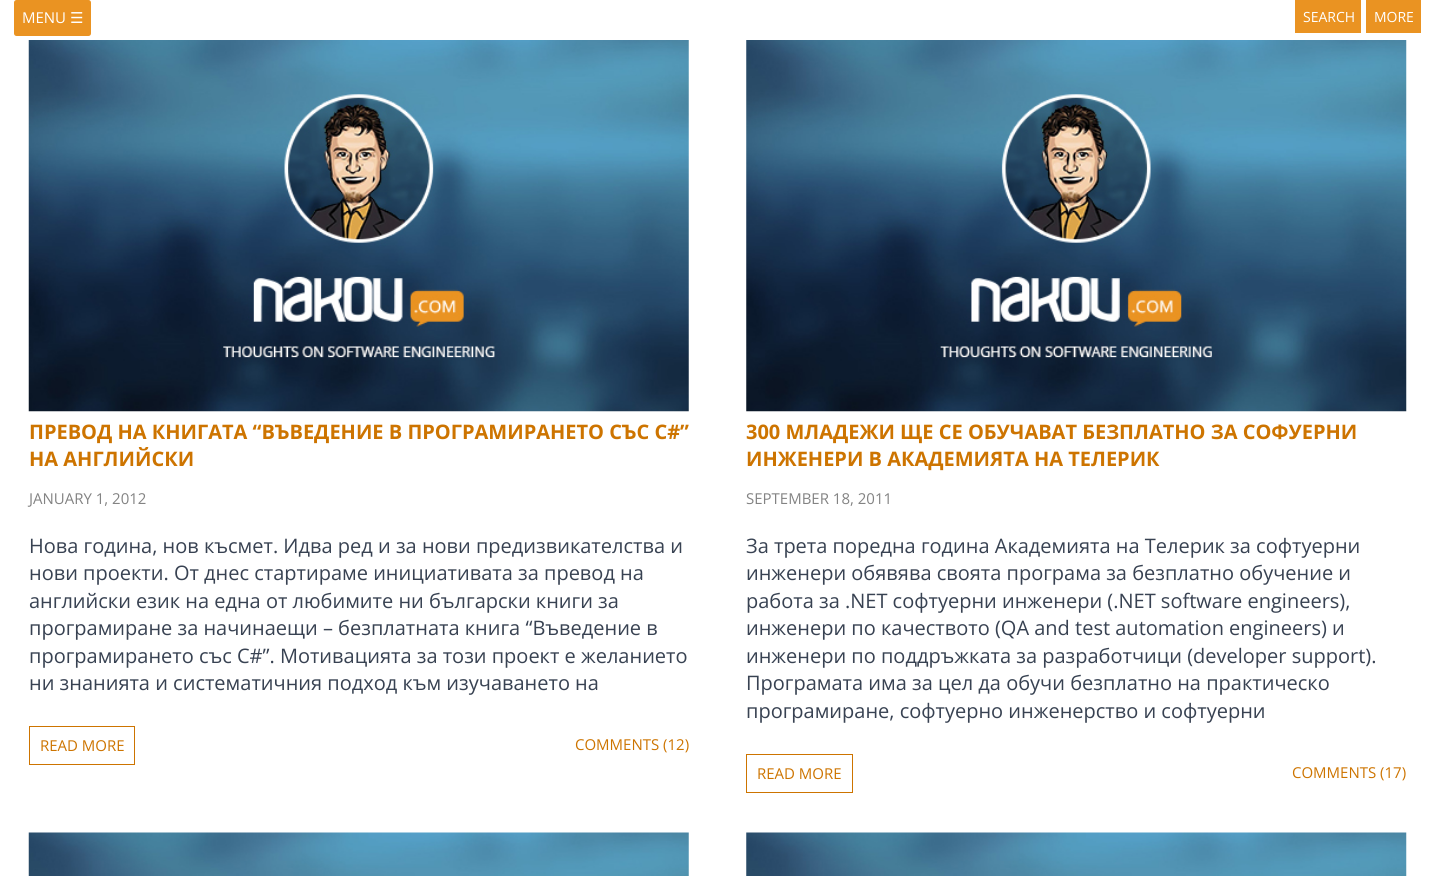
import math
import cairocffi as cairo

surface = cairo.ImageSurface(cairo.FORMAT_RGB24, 1434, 876)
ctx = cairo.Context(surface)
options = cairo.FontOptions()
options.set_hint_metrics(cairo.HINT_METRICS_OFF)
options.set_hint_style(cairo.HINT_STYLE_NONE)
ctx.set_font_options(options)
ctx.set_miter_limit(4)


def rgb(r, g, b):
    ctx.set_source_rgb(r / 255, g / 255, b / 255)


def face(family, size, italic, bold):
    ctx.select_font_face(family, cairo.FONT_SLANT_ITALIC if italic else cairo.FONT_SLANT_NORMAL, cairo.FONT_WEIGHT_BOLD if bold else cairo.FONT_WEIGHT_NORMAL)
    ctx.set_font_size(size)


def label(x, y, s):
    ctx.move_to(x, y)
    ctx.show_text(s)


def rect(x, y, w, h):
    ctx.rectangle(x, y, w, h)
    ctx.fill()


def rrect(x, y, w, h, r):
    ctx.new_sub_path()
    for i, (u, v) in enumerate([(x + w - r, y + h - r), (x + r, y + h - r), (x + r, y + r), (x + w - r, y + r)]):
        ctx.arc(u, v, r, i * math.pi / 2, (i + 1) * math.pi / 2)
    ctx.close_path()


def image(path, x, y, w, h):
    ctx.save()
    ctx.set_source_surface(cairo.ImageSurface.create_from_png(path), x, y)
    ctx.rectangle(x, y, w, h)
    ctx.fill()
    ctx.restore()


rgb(255, 255, 255)
ctx.paint()
rgb(234, 147, 34)
rrect(14, 0, 77, 36, 2.5)
ctx.fill()
face('Open Sans', 15, 0, 0)
rgb(255, 255, 255)
label(22, 23, 'MENU')
face('DejaVu Sans', 15, 0, 0)
label(70, 23, '☰')
rgb(234, 147, 34)
rect(1295, 0, 66, 33)
face('Open Sans', 14, 0, 0)
rgb(255, 255, 255)
label(1303, 22, 'SEARCH')
rgb(234, 147, 34)
rect(1366, 0, 55, 33)
rgb(255, 255, 255)
label(1374, 22, 'MORE')
image('image0.png', 28, 40, 661, 372)
face('Open Sans', 20, 0, 1)
rgb(205, 116, 0)
label(29, 439, 'ПРЕВОД НА КНИГАТА “ВЪВЕДЕНИЕ В ПРОГРАМИРАНЕТО СЪС C#”')
label(29, 466, 'НА АНГЛИЙСКИ')
face('Open Sans', 15, 0, 0)
rgb(131, 131, 131)
label(29, 504, 'JANUARY 1, 2012')
face('Open Sans', 20, 0, 0)
rgb(56, 66, 82)
label(29, 553, 'Нова година, нов късмет. Идва ред и за нови предизвикателства и')
label(29, 580, 'нови проекти. От днес стартираме инициативата за превод на')
label(29, 608, 'английски език на една от любимите ни български книги за')
label(29, 635, 'програмиране за начинаещи – безплатната книга “Въведение в')
label(29, 663, 'програмирането със C#”. Мотивацията за този проект е желанието')
label(29, 690, 'ни знанията и систематичния подход към изучаването на')
ctx.rectangle(29.5, 726.5, 105, 38)
rgb(205, 116, 0)
ctx.set_line_width(1)
ctx.stroke()
face('Open Sans', 15, 0, 0)
label(40, 751, 'READ MORE')
label(575, 750, 'COMMENTS (12)')
image('image1.png', 746, 40, 661, 372)
face('Open Sans', 20, 0, 1)
label(746, 439, '300 МЛАДЕЖИ ЩЕ СЕ ОБУЧАВАТ БЕЗПЛАТНО ЗА СОФУЕРНИ')
label(746, 466, 'ИНЖЕНЕРИ В АКАДЕМИЯТА НА ТЕЛЕРИК')
face('Open Sans', 15, 0, 0)
rgb(131, 131, 131)
label(746, 504, 'SEPTEMBER 18, 2011')
face('Open Sans', 20, 0, 0)
rgb(56, 66, 82)
label(746, 553, 'За трета поредна година Академията на Телерик за софтуерни')
label(746, 580, 'инженери обявява своята програма за безплатно обучение и')
label(746, 608, 'работа за .NET софтуерни инженери (.NET software engineers),')
label(746, 635, 'инженери по качеството (QA and test automation engineers) и')
label(746, 663, 'инженери по поддръжката за разработчици (developer support).')
label(746, 690, 'Програмата има за цел да обучи безплатно на практическо')
label(746, 718, 'програмиране, софтуерно инженерство и софтуерни')
ctx.rectangle(746.5, 754.5, 106, 38)
rgb(205, 116, 0)
ctx.stroke()
face('Open Sans', 15, 0, 0)
label(757, 779, 'READ MORE')
label(1292, 778, 'COMMENTS (17)')
image('image2.png', 28, 832, 661, 44)
image('image3.png', 746, 832, 661, 44)
surface.write_to_png('render.png')
